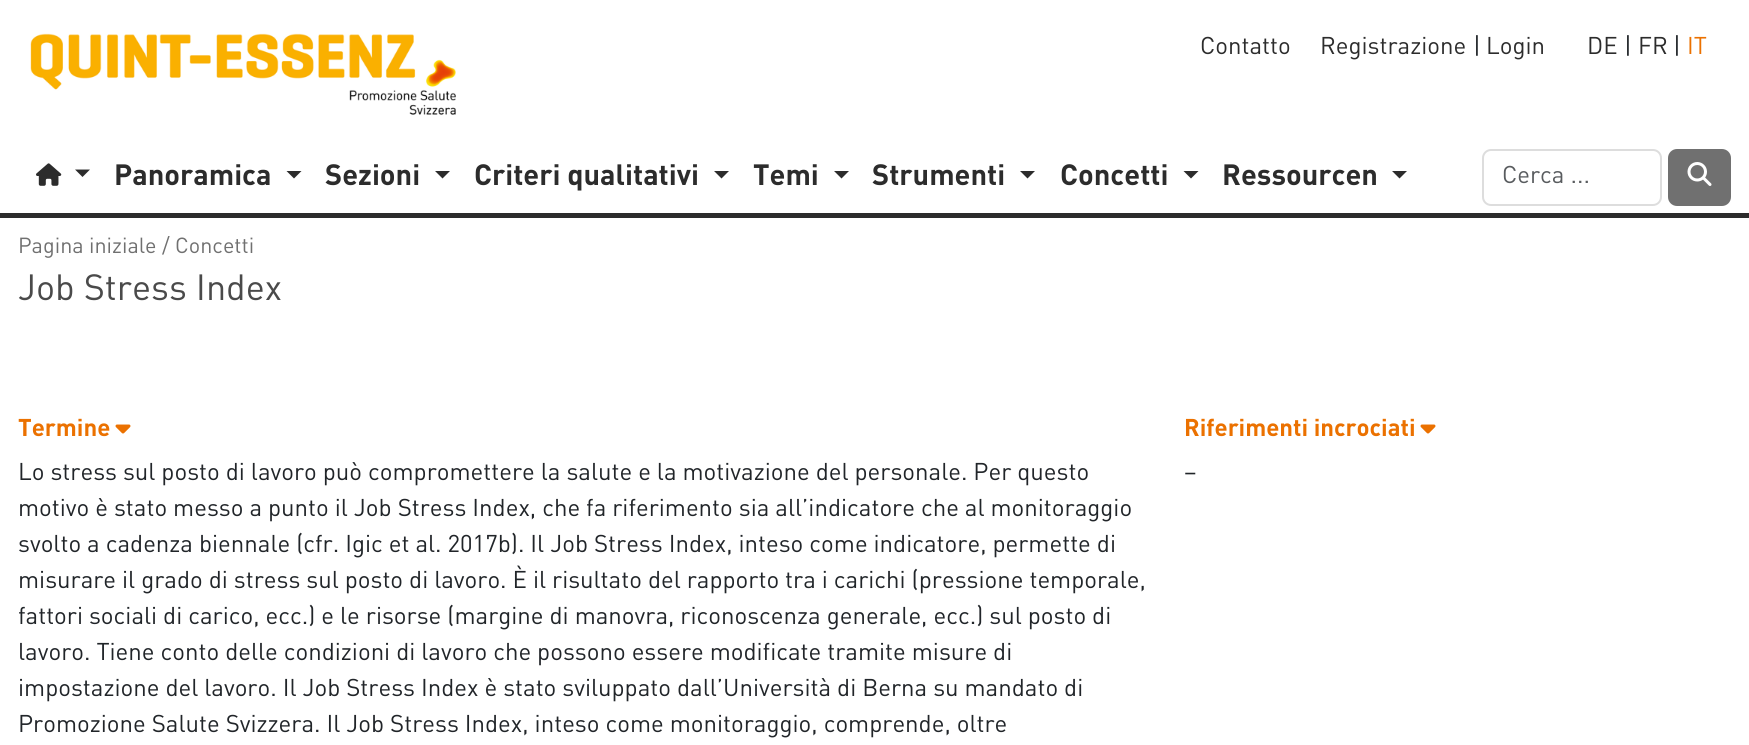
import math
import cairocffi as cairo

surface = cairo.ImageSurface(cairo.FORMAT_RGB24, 1749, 745)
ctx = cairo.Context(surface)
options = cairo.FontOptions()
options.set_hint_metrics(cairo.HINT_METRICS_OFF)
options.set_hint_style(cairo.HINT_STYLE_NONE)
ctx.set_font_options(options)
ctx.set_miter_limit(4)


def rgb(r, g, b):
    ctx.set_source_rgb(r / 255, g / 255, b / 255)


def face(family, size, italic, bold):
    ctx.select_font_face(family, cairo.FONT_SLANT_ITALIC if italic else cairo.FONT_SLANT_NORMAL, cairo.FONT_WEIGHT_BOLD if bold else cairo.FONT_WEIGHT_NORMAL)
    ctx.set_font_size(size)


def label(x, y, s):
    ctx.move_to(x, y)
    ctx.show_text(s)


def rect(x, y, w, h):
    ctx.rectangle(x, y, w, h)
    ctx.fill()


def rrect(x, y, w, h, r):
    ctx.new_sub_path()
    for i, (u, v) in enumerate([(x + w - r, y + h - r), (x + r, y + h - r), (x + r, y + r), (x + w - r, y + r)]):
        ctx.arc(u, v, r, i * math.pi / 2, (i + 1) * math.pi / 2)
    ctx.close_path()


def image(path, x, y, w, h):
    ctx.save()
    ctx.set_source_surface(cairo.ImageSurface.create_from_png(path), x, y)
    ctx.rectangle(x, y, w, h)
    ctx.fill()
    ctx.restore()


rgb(255, 255, 255)
ctx.paint()
image('image0.png', 30, 33, 426, 82)
face('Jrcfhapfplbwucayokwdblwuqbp', 24, 0, 0)
rgb(44, 44, 44)
label(1200, 54, 'Contatto')
label(1320, 54, 'Registrazione')
rgb(33, 37, 41)
label(1473, 54, '|')
rgb(44, 44, 44)
label(1486, 54, 'Login')
label(1587, 54, 'DE')
rgb(33, 37, 41)
label(1624, 54, '|')
rgb(44, 44, 44)
label(1638, 54, 'FR')
rgb(33, 37, 41)
label(1673, 54, '|')
rgb(235, 113, 0)
label(1687, 54, 'IT')
image('image1.png', 36, 163, 26, 23)
rgb(44, 44, 44)
ctx.new_path()
ctx.move_to(75, 169.5)
ctx.line_to(90, 169.5)
ctx.line_to(82.5, 177)
ctx.close_path()
ctx.fill()
face('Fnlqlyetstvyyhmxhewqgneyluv', 29, 0, 1)
label(114, 185, 'Panoramica')
ctx.new_path()
ctx.move_to(286.5, 171)
ctx.line_to(301.5, 171)
ctx.line_to(294, 178.5)
ctx.close_path()
ctx.fill()
label(325, 185, 'Sezioni')
ctx.new_path()
ctx.move_to(435, 171)
ctx.line_to(450, 171)
ctx.line_to(442.5, 178.5)
ctx.close_path()
ctx.fill()
label(474, 185, 'Criteri qualitativi')
ctx.new_path()
ctx.move_to(714, 171)
ctx.line_to(729, 171)
ctx.line_to(721.5, 178.5)
ctx.close_path()
ctx.fill()
label(753, 185, 'Temi')
ctx.new_path()
ctx.move_to(834, 171)
ctx.line_to(849, 171)
ctx.line_to(841.5, 178.5)
ctx.close_path()
ctx.fill()
label(872, 185, 'Strumenti')
ctx.new_path()
ctx.move_to(1020, 171)
ctx.line_to(1035, 171)
ctx.line_to(1027.5, 178.5)
ctx.close_path()
ctx.fill()
label(1060, 185, 'Concetti')
ctx.new_path()
ctx.move_to(1183.5, 171)
ctx.line_to(1198.5, 171)
ctx.line_to(1191, 178.5)
ctx.close_path()
ctx.fill()
label(1222, 185, 'Ressourcen')
ctx.new_path()
ctx.move_to(1392, 171)
ctx.line_to(1407, 171)
ctx.line_to(1399.5, 178.5)
ctx.close_path()
ctx.fill()
rrect(1483, 150, 178, 55, 8)
rgb(221, 221, 221)
ctx.stroke()
face('Jrcfhapfplbwucayokwdblwuqbp', 24, 0, 0)
rgb(89, 92, 95)
label(1502, 183, 'Cerca ...')
rgb(112, 112, 112)
rrect(1668, 149, 63, 57, 9)
ctx.fill()
image('image2.png', 1687, 162, 25, 24)
rgb(44, 44, 44)
rect(0, 213, 1749, 5)
face('Jrcfhapfplbwucayokwdblwuqbp', 21.6, 0, 0)
rgb(112, 112, 112)
label(18, 253, 'Pagina iniziale / Concetti')
face('Jrcfhapfplbwucayokwdblwuqbp', 36, 0, 0)
rgb(74, 74, 74)
label(18, 300, 'Job Stress Index')
face('Fnlqlyetstvyyhmxhewqgneyluv', 24, 0, 1)
rgb(235, 113, 0)
label(18, 436, 'Termine')
image('image3.png', 115, 424, 16, 10)
face('Jrcfhapfplbwucayokwdblwuqbp', 24, 0, 0)
rgb(33, 37, 41)
label(18, 480, 'Lo stress sul posto di lavoro può compromettere la salute e la motivazione del personale. Per questo')
label(18, 516, 'motivo è stato messo a punto il Job Stress Index, che fa riferimento sia all’indicatore che al monitoraggio')
label(18, 552, 'svolto a cadenza biennale (cfr. Igic et al. 2017b). Il Job Stress Index, inteso come indicatore, permette di')
label(18, 588, 'misurare il grado di stress sul posto di lavoro. È il risultato del rapporto tra i carichi (pressione temporale,')
label(18, 624, 'fattori sociali di carico, ecc.) e le risorse (margine di manovra, riconoscenza generale, ecc.) sul posto di')
label(18, 660, 'lavoro. Tiene conto delle condizioni di lavoro che possono essere modificate tramite misure di')
label(18, 696, 'impostazione del lavoro. Il Job Stress Index è stato sviluppato dall’Università di Berna su mandato di')
label(18, 732, 'Promozione Salute Svizzera. Il Job Stress Index, inteso come monitoraggio, comprende, oltre')
face('Fnlqlyetstvyyhmxhewqgneyluv', 24, 0, 1)
rgb(235, 113, 0)
label(1184, 436, 'Riferimenti incrociati')
image('image3.png', 1420, 424, 16, 10)
face('Jrcfhapfplbwucayokwdblwuqbp', 24, 0, 0)
rgb(33, 37, 41)
label(1184, 480, '–')
surface.write_to_png('render.png')
